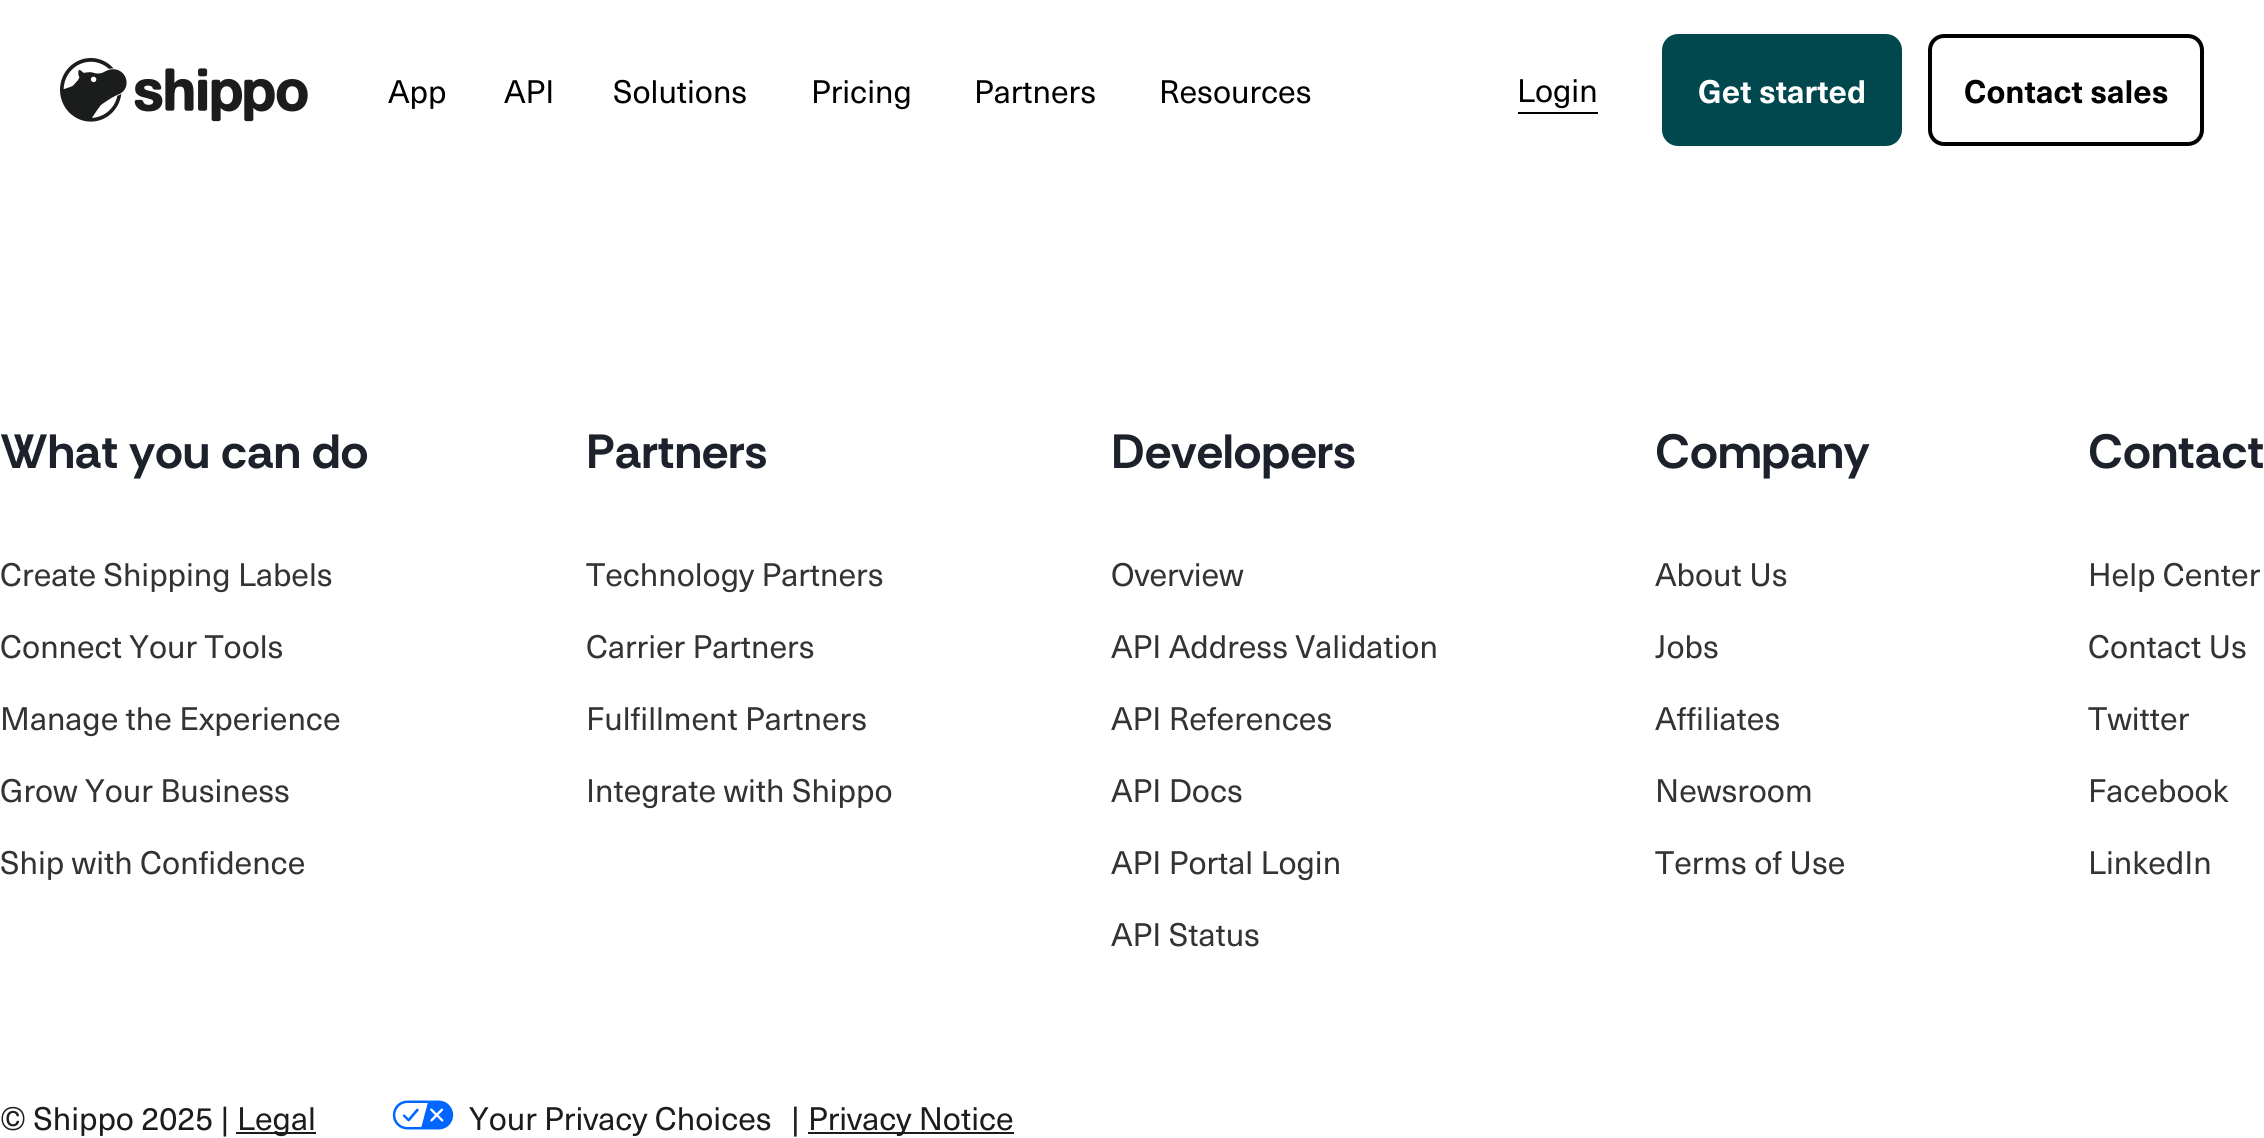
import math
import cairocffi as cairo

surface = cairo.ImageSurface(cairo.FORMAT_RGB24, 2264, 1138)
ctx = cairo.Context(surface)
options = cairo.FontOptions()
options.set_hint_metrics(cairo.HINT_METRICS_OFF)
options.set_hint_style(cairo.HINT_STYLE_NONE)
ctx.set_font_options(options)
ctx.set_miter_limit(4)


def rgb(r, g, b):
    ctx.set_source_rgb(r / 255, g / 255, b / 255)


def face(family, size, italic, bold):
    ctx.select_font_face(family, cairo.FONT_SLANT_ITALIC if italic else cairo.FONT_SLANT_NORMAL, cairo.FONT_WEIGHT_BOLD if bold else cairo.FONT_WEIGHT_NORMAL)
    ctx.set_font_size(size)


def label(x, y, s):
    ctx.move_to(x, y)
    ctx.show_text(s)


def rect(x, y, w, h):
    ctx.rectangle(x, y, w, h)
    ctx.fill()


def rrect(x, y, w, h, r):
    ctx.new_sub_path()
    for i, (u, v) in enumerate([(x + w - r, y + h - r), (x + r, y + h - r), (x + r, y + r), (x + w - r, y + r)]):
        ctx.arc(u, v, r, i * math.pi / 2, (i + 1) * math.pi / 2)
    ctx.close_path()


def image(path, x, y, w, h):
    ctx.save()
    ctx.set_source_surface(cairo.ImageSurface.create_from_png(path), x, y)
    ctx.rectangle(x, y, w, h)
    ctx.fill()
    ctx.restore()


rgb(255, 255, 255)
ctx.paint()
image('image0.png', 60, 58, 248, 64)
face('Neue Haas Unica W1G', 32, 0, 0)
rgb(0, 0, 0)
label(388, 103, 'App')
label(504, 103, 'API')
label(613, 103, 'Solutions')
label(811, 103, 'Pricing')
label(974, 103, 'Partners')
label(1159, 103, 'Resources')
rect(1518, 112, 80, 2)
label(1517, 102, 'Login')
rgb(0, 72, 78)
rrect(1664, 36, 236, 108, 14)
ctx.fill_preserve()
ctx.set_line_width(4)
ctx.stroke()
face('Neue Haas Unica W1G', 32, 0, 1)
rgb(255, 255, 255)
label(1698, 103, 'Get started')
rrect(1930, 36, 272, 108, 14)
rgb(0, 0, 0)
ctx.stroke()
label(1964, 103, 'Contact sales')
face('Rethink Sans', 48, 0, 1)
rgb(28, 33, 43)
label(0, 468, 'What you can do')
face('Neue Haas Unica W1G', 32, 0, 0)
rgb(51, 51, 51)
label(0, 586, 'Create Shipping Labels')
label(0, 658, 'Connect Your Tools')
label(0, 730, 'Manage the Experience')
label(0, 802, 'Grow Your Business')
label(0, 874, 'Ship with Confidence')
face('Rethink Sans', 48, 0, 1)
rgb(28, 33, 43)
label(586, 468, 'Partners')
face('Neue Haas Unica W1G', 32, 0, 0)
rgb(51, 51, 51)
label(586, 586, 'Technology Partners')
label(586, 658, 'Carrier Partners')
label(586, 730, 'Fulfillment Partners')
label(586, 802, 'Integrate with Shippo')
face('Rethink Sans', 48, 0, 1)
rgb(28, 33, 43)
label(1111, 468, 'Developers')
face('Neue Haas Unica W1G', 32, 0, 0)
rgb(51, 51, 51)
label(1111, 586, 'Overview')
label(1111, 658, 'API Address Validation')
label(1111, 730, 'API References')
label(1111, 802, 'API Docs')
label(1111, 874, 'API Portal Login')
label(1111, 946, 'API Status')
face('Rethink Sans', 48, 0, 1)
rgb(28, 33, 43)
label(1655, 468, 'Company')
face('Neue Haas Unica W1G', 32, 0, 0)
rgb(51, 51, 51)
label(1655, 586, 'About Us')
label(1655, 658, 'Jobs')
label(1655, 730, 'Affiliates')
label(1655, 802, 'Newsroom')
label(1655, 874, 'Terms of Use')
face('Rethink Sans', 48, 0, 1)
rgb(28, 33, 43)
label(2088, 468, 'Contact')
face('Neue Haas Unica W1G', 32, 0, 0)
rgb(51, 51, 51)
label(2088, 586, 'Help Center')
label(2088, 658, 'Contact Us')
label(2088, 730, 'Twitter')
label(2088, 802, 'Facebook')
label(2088, 874, 'LinkedIn')
rgb(28, 28, 28)
label(0, 1130, '© Shippo 2025 |')
rect(236, 1132, 80, 2)
label(237, 1130, 'Legal')
image('image1.png', 392, 1100, 62, 30)
label(469, 1130, 'Your Privacy Choices')
label(791, 1130, '|')
rect(808, 1132, 206, 2)
label(808, 1130, 'Privacy Notice')
surface.write_to_png('render.png')
